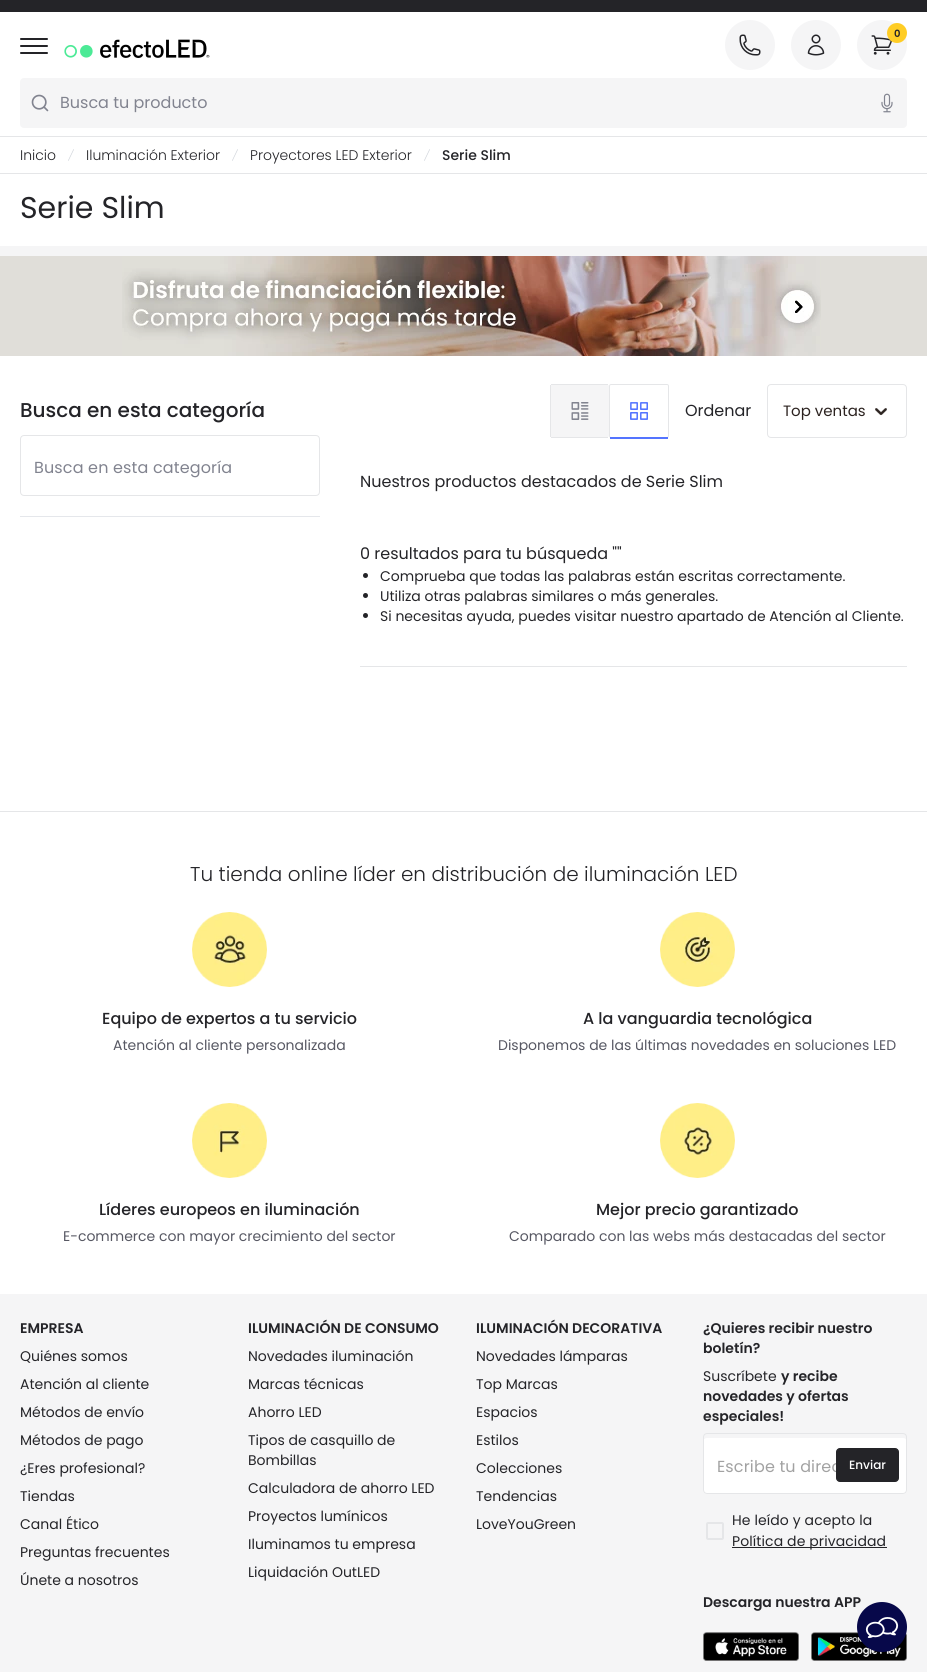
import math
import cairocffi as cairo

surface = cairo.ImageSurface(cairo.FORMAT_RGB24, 927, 1672)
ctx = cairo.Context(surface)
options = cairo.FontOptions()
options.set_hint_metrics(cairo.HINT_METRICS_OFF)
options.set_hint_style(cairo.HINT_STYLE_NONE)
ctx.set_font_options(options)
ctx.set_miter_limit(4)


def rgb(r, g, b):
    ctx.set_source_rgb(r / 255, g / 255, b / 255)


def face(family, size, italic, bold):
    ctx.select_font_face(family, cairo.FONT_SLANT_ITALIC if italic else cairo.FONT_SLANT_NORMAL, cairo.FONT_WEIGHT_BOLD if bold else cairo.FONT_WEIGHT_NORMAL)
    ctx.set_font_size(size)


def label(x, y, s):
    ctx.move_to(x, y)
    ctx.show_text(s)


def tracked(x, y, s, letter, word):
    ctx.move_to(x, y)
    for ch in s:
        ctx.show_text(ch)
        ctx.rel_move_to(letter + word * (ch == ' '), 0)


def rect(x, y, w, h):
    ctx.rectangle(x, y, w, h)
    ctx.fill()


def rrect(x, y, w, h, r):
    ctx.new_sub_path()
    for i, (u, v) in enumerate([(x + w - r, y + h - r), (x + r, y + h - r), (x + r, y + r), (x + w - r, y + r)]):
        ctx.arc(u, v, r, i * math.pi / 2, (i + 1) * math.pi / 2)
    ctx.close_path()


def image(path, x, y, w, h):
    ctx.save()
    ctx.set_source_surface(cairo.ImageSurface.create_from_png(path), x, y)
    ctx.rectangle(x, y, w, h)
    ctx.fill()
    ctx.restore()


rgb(255, 255, 255)
ctx.paint()
rgb(36, 36, 40)
rect(0, 0, 927, 12)
rgb(229, 230, 232)
rect(0, 136, 927, 1)
rgb(245, 245, 246)
ctx.arc(750, 45, 25, 0, 2 * math.pi)
ctx.fill()
image('image0.png', 739, 34, 22, 22)
ctx.arc(816, 45, 25, 0, 2 * math.pi)
ctx.fill()
image('image1.png', 807, 34, 18, 22)
ctx.arc(882, 45, 25, 0, 2 * math.pi)
ctx.fill()
image('image2.png', 871, 35, 21, 20)
rgb(255, 205, 37)
ctx.arc(897, 33, 10, 0, 2 * math.pi)
ctx.fill()
face('Poppins SemiBold', 10, 0, 0)
rgb(36, 36, 40)
label(894, 37, '0')
rrect(20, 38, 28, 2, 1)
ctx.fill()
rrect(20, 45, 28, 2, 1)
ctx.fill()
rrect(20, 52, 28, 2, 1)
ctx.fill()
image('image3.png', 64, 39, 146, 19)
rgb(245, 245, 246)
rrect(20, 78, 887, 50, 4)
ctx.fill()
image('image4.png', 31, 94, 18, 18)
face('Poppins', 16, 0, 0)
rgb(129, 131, 143)
label(60, 108, 'Busca tu producto')
image('image5.png', 881, 93, 12, 20)
rgb(229, 230, 232)
rect(0, 173, 927, 1)
face('Poppins Light', 14, 0, 0)
rgb(36, 36, 40)
label(20, 160, 'Inicio')
rgb(209, 213, 219)
ctx.new_path()
ctx.move_to(68, 160.5)
ctx.line_to(73.5, 149)
ctx.line_to(74, 149.5)
ctx.line_to(68.5, 161)
ctx.close_path()
ctx.fill()
rgb(36, 36, 40)
label(86, 160, 'Iluminación Exterior')
rgb(209, 213, 219)
ctx.new_path()
ctx.move_to(232, 160.5)
ctx.line_to(237.5, 149)
ctx.line_to(238, 149.5)
ctx.line_to(232.5, 161)
ctx.close_path()
ctx.fill()
rgb(36, 36, 40)
label(250, 160, 'Proyectores LED Exterior')
rgb(209, 213, 219)
ctx.new_path()
ctx.move_to(424, 160.5)
ctx.line_to(429.5, 149)
ctx.line_to(430, 149.5)
ctx.line_to(424.5, 161)
ctx.close_path()
ctx.fill()
face('Poppins Medium', 14, 0, 0)
rgb(36, 36, 40)
label(442, 160, 'Serie Slim')
face('Poppins', 30, 0, 0)
label(20, 218, 'Serie Slim')
rgb(245, 245, 246)
rect(0, 246, 927, 10)
rgb(224, 222, 217)
rect(0, 256, 927, 100)
image('image6.png', 122, 256, 699, 100)
rgb(229, 231, 235)
rect(20, 516, 300, 1)
face('Poppins Medium', 20, 0, 0)
rgb(36, 36, 40)
label(20, 417, 'Busca en esta categoría')
rrect(20.5, 435.5, 299, 60, 3.5)
rgb(229, 230, 232)
ctx.set_line_width(1)
ctx.stroke()
face('Poppins', 16, 0, 0)
rgb(129, 131, 143)
tracked(34, 473, 'Busca en esta categoría', 0.15, 0)
rgb(245, 245, 246)
ctx.new_path()
ctx.move_to(552, 385)
ctx.line_to(607, 385)
ctx.curve_to(608, 385, 609, 385, 609, 386)
ctx.line_to(609, 436)
ctx.curve_to(609, 437, 608, 437, 607, 437)
ctx.line_to(552, 437)
ctx.curve_to(551, 437, 551, 437, 551, 436)
ctx.line_to(551, 386)
ctx.curve_to(551, 385, 551, 385, 552, 385)
ctx.close_path()
ctx.fill()
rgb(229, 230, 232)
rect(551, 384, 57, 1)
rect(551, 437, 57, 1)
rect(550, 385, 1, 52)
image('image7.png', 571, 402, 18, 18)
rrect(609.5, 384.5, 59, 53, 1.5)
ctx.stroke()
image('image8.png', 630, 402, 18, 18)
rgb(84, 116, 255)
rect(610, 437, 58, 2)
rgb(36, 36, 40)
label(685, 416, 'Ordenar')
rrect(767.5, 384.5, 139, 53, 3.5)
rgb(229, 230, 232)
ctx.stroke()
face('Poppins', 15, 0, 0)
rgb(43, 34, 31)
label(783, 416, 'Top ventas')
image('image9.png', 875, 408, 12, 8)
face('Poppins', 16, 0, 0)
rgb(36, 36, 40)
label(360, 487, 'Nuestros productos destacados de Serie Slim')
label(360, 559, '0 resultados para tu búsqueda ""')
ctx.new_path()
ctx.arc(365.5, 575.5, 2.5, 0, 2 * math.pi)
ctx.fill()
face('Poppins', 14, 0, 0)
label(380, 581, 'Comprueba que todas las palabras están escritas correctamente.')
ctx.new_path()
ctx.arc(365.5, 595.5, 2.5, 0, 2 * math.pi)
ctx.fill()
label(380, 601, 'Utiliza otras palabras similares o más generales.')
ctx.new_path()
ctx.arc(365.5, 615.5, 2.5, 0, 2 * math.pi)
ctx.fill()
label(380, 621, 'Si necesitas ayuda, puedes visitar nuestro apartado de Atención al Cliente.')
rgb(229, 230, 232)
rect(360, 666, 547, 1)
rect(0, 811, 927, 1)
face('Poppins Light', 20, 0, 0)
rgb(36, 36, 40)
label(190, 881, 'Tu tienda online líder en distribución de iluminación LED')
image('image10.png', 192, 912, 75, 75)
face('Poppins Medium', 16, 0, 0)
label(102, 1024, 'Equipo de expertos a tu servicio')
face('Poppins', 14, 0, 0)
rgb(87, 88, 99)
label(113, 1050, 'Atención al cliente personalizada')
image('image11.png', 660, 912, 75, 75)
face('Poppins Medium', 16, 0, 0)
rgb(36, 36, 40)
label(583, 1024, 'A la vanguardia tecnológica')
face('Poppins', 14, 0, 0)
rgb(87, 88, 99)
label(498, 1050, 'Disponemos de las últimas novedades en soluciones LED')
image('image12.png', 192, 1103, 75, 75)
face('Poppins Medium', 16, 0, 0)
rgb(36, 36, 40)
label(99, 1215, 'Líderes europeos en iluminación')
face('Poppins', 14, 0, 0)
rgb(87, 88, 99)
label(63, 1241, 'E-commerce con mayor crecimiento del sector')
image('image13.png', 660, 1103, 75, 75)
face('Poppins Medium', 16, 0, 0)
rgb(36, 36, 40)
label(596, 1215, 'Mejor precio garantizado')
face('Poppins', 14, 0, 0)
rgb(87, 88, 99)
label(509, 1241, 'Comparado con las webs más destacadas del sector')
rgb(245, 245, 246)
rect(0, 1294, 927, 378)
face('Poppins SemiBold', 14, 0, 0)
rgb(36, 36, 40)
label(20, 1333, 'EMPRESA')
face('Poppins', 14, 0, 0)
label(20, 1361, 'Quiénes somos')
label(20, 1389, 'Atención al cliente')
label(20, 1417, 'Métodos de envío')
label(20, 1445, 'Métodos de pago')
label(20, 1473, '¿Eres profesional?')
label(20, 1501, 'Tiendas')
label(20, 1529, 'Canal Ético')
label(20, 1557, 'Preguntas frecuentes')
label(20, 1585, 'Únete a nosotros')
face('Poppins SemiBold', 14, 0, 0)
label(248, 1333, 'ILUMINACIÓN DE CONSUMO')
face('Poppins', 14, 0, 0)
label(248, 1361, 'Novedades iluminación')
label(248, 1389, 'Marcas técnicas')
label(248, 1417, 'Ahorro LED')
label(248, 1445, 'Tipos de casquillo de')
label(248, 1465, 'Bombillas')
label(248, 1493, 'Calculadora de ahorro LED')
label(248, 1521, 'Proyectos lumínicos')
label(248, 1549, 'Iluminamos tu empresa')
label(248, 1577, 'Liquidación OutLED')
face('Poppins SemiBold', 14, 0, 0)
label(476, 1333, 'ILUMINACIÓN DECORATIVA')
face('Poppins', 14, 0, 0)
label(476, 1361, 'Novedades lámparas')
label(476, 1389, 'Top Marcas')
label(476, 1417, 'Espacios')
label(476, 1445, 'Estilos')
label(476, 1473, 'Colecciones')
label(476, 1501, 'Tendencias')
label(476, 1529, 'LoveYouGreen')
face('Poppins SemiBold', 14, 0, 0)
label(703, 1333, '¿Quieres recibir nuestro')
label(703, 1353, 'boletín?')
face('Poppins', 14, 0, 0)
label(703, 1381, 'Suscríbete')
face('Poppins SemiBold', 14, 0, 0)
label(781, 1381, 'y recibe')
label(703, 1401, 'novedades y ofertas')
label(703, 1421, 'especiales!')
rgb(255, 255, 255)
rrect(703, 1438, 204, 56, 4)
ctx.fill()
rrect(703.5, 1433.5, 203, 60, 3.5)
rgb(229, 230, 232)
ctx.stroke()
face('Poppins', 16, 0, 0)
rgb(162, 162, 162)
tracked(717, 1472, 'Escribe tu direc', 0.15, 0)
rgb(36, 36, 40)
rrect(836.5, 1448.5, 62, 33, 3.5)
ctx.fill_preserve()
ctx.stroke()
face('Poppins Medium', 12, 0, 0)
rgb(255, 255, 255)
label(849, 1469, 'Enviar')
image('image14.png', 706, 1522, 18, 18)
face('Poppins', 14, 0, 0)
rgb(36, 36, 40)
tracked(732, 1525, 'He leído y acepto la', 0.1, 0)
rect(732, 1547, 155, 1)
tracked(732, 1546, 'Política de privacidad', 0.1, 0)
face('Poppins SemiBold', 14, 0, 0)
label(703, 1607, 'Descarga nuestra APP')
image('image15.png', 703, 1632, 96, 29)
image('image16.png', 811, 1632, 96, 29)
rgb(7, 8, 74)
ctx.arc(882, 1627, 25, 0, 2 * math.pi)
ctx.fill()
image('image17.png', 865, 1617, 34, 21)
surface.write_to_png('render.png')
